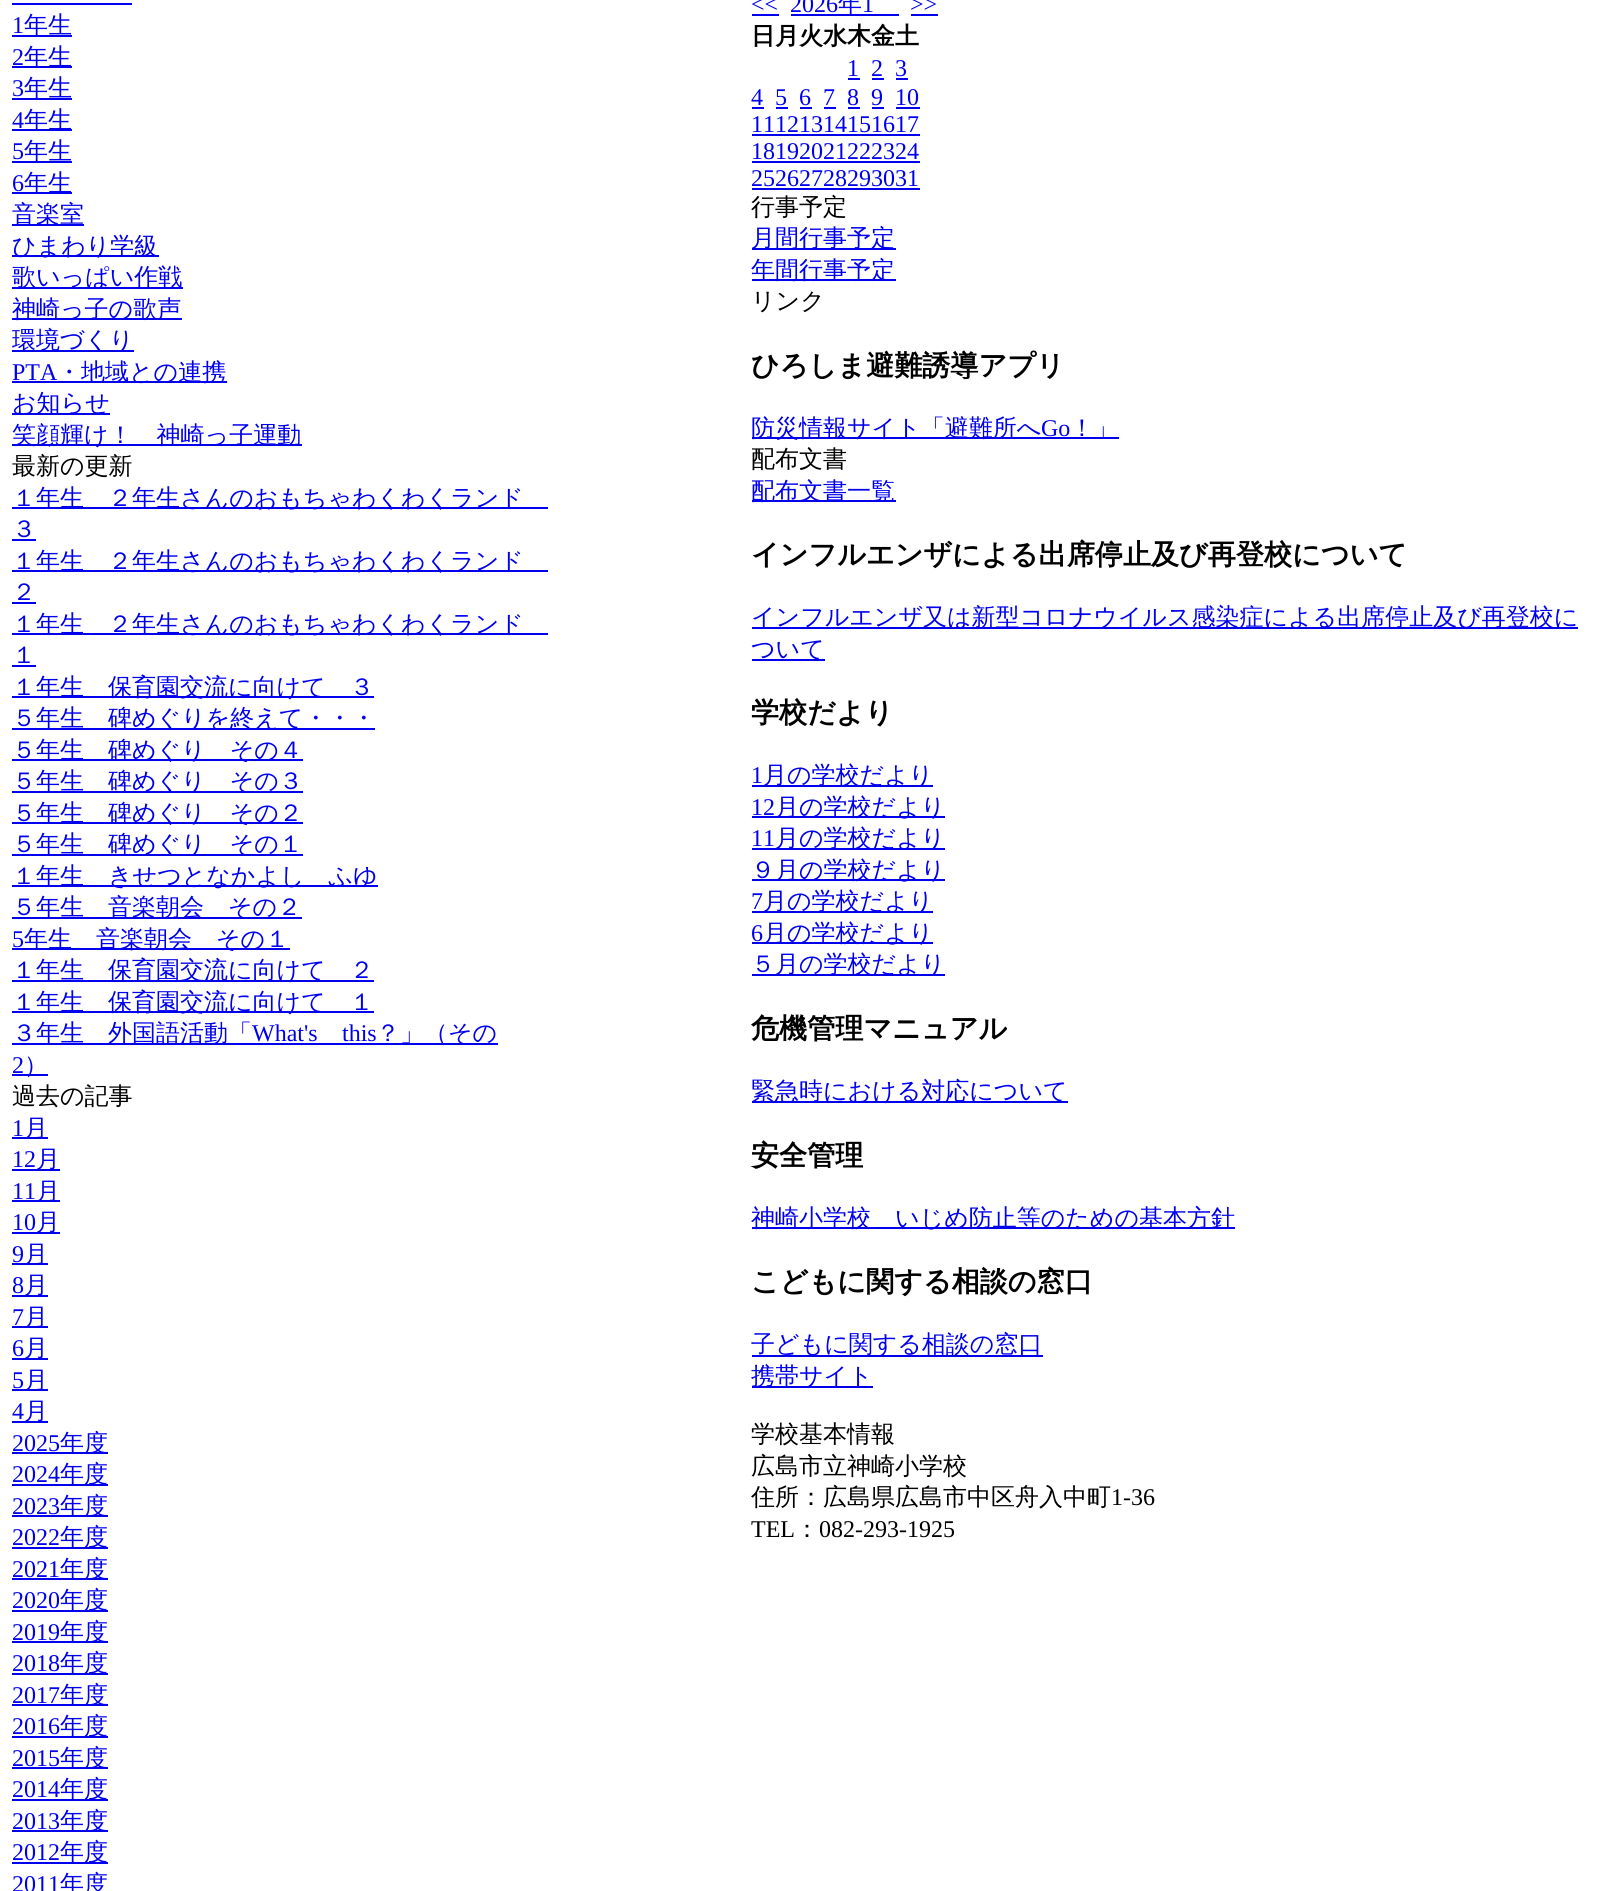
import math
import cairocffi as cairo

surface = cairo.ImageSurface(cairo.FORMAT_RGB24, 1603, 1891)
ctx = cairo.Context(surface)
options = cairo.FontOptions()
options.set_hint_metrics(cairo.HINT_METRICS_OFF)
options.set_hint_style(cairo.HINT_STYLE_NONE)
ctx.set_font_options(options)
ctx.set_miter_limit(4)


def rgb(r, g, b):
    ctx.set_source_rgb(r / 255, g / 255, b / 255)


def face(family, size, italic, bold):
    ctx.select_font_face(family, cairo.FONT_SLANT_ITALIC if italic else cairo.FONT_SLANT_NORMAL, cairo.FONT_WEIGHT_BOLD if bold else cairo.FONT_WEIGHT_NORMAL)
    ctx.set_font_size(size)


def label(x, y, s):
    ctx.move_to(x, y)
    ctx.show_text(s)


def rect(x, y, w, h):
    ctx.rectangle(x, y, w, h)
    ctx.fill()


rgb(255, 255, 255)
ctx.paint()
rgb(0, 0, 238)
rect(12, 3, 120, 2)
face('Liberation Serif', 24, 0, 0)
label(12, 33, '1')
rect(12, 35, 60, 2)
face('WenQuanYi Zen Hei Medium', 24, 0, 0)
label(24, 33, '年生')
face('Liberation Serif', 24, 0, 0)
label(12, 65, '2')
rect(12, 66, 60, 2)
face('WenQuanYi Zen Hei Medium', 24, 0, 0)
label(24, 65, '年生')
face('Liberation Serif', 24, 0, 0)
label(12, 96, '3')
rect(12, 98, 60, 2)
face('WenQuanYi Zen Hei Medium', 24, 0, 0)
label(24, 96, '年生')
face('Liberation Serif', 24, 0, 0)
label(12, 128, '4')
rect(12, 129, 60, 2)
face('WenQuanYi Zen Hei Medium', 24, 0, 0)
label(24, 128, '年生')
face('Liberation Serif', 24, 0, 0)
label(12, 159, '5')
rect(12, 161, 60, 2)
face('WenQuanYi Zen Hei Medium', 24, 0, 0)
label(24, 159, '年生')
face('Liberation Serif', 24, 0, 0)
label(12, 191, '6')
rect(12, 192, 60, 2)
face('WenQuanYi Zen Hei Medium', 24, 0, 0)
label(24, 191, '年生')
rect(12, 224, 72, 2)
label(12, 222, '音楽室')
rect(12, 255, 147, 2)
label(12, 254, 'ひまわり学級')
rect(12, 287, 171, 2)
label(12, 285, '歌いっぱい作戦')
rect(12, 318, 170, 2)
label(12, 317, '神崎っ子の歌声')
rect(12, 350, 122, 2)
label(12, 348, '環境づくり')
face('Liberation Serif', 24, 0, 0)
label(12, 380, 'PTA')
rect(12, 381, 215, 2)
face('WenQuanYi Zen Hei Medium', 24, 0, 0)
label(57, 380, '・地域との連携')
rect(12, 413, 98, 2)
label(12, 411, 'お知らせ')
rect(12, 444, 290, 2)
label(12, 443, '笑顔輝け！　神崎っ子運動')
rgb(0, 0, 0)
label(12, 474, '最新の更新')
rgb(0, 0, 238)
rect(12, 507, 536, 2)
label(12, 506, '１年生　２年生さんのおもちゃわくわくランド')
label(12, 537, '３')
rect(12, 539, 24, 2)
rect(12, 570, 536, 2)
label(12, 569, '１年生　２年生さんのおもちゃわくわくランド')
label(12, 600, '２')
rect(12, 602, 24, 2)
rect(12, 633, 536, 2)
label(12, 632, '１年生　２年生さんのおもちゃわくわくランド')
label(12, 663, '１')
rect(12, 665, 24, 2)
rect(12, 696, 362, 2)
label(12, 695, '１年生　保育園交流に向けて　３')
rect(12, 728, 363, 2)
label(12, 726, '５年生　碑めぐりを終えて・・・')
rect(12, 759, 291, 2)
label(12, 758, '５年生　碑めぐり　その４')
rect(12, 791, 291, 2)
label(12, 789, '５年生　碑めぐり　その３')
rect(12, 822, 291, 2)
label(12, 821, '５年生　碑めぐり　その２')
rect(12, 854, 291, 2)
label(12, 852, '５年生　碑めぐり　その１')
rect(12, 885, 366, 2)
label(12, 884, '１年生　きせつとなかよし　ふゆ')
rect(12, 917, 290, 2)
label(12, 915, '５年生　音楽朝会　その２')
face('Liberation Serif', 24, 0, 0)
label(12, 947, '5')
rect(12, 948, 278, 2)
face('WenQuanYi Zen Hei Medium', 24, 0, 0)
label(24, 947, '年生　音楽朝会　その１')
rect(12, 980, 362, 2)
label(12, 978, '１年生　保育園交流に向けて　２')
rect(12, 1011, 362, 2)
label(12, 1010, '１年生　保育園交流に向けて　１')
rect(12, 1043, 486, 2)
label(12, 1041, '３年生　外国語活動「')
face('Liberation Serif', 24, 0, 0)
label(252, 1041, 'What\'s')
label(342, 1041, 'this')
face('WenQuanYi Zen Hei Medium', 24, 0, 0)
label(376, 1041, '？」（その')
face('Liberation Serif', 24, 0, 0)
label(12, 1073, '2')
rect(12, 1074, 36, 2)
face('WenQuanYi Zen Hei Medium', 24, 0, 0)
label(24, 1073, '）')
rgb(0, 0, 0)
label(12, 1104, '過去の記事')
face('Liberation Serif', 24, 0, 0)
rgb(0, 0, 238)
label(12, 1136, '1')
rect(12, 1137, 36, 2)
face('WenQuanYi Zen Hei Medium', 24, 0, 0)
label(24, 1136, '月')
face('Liberation Serif', 24, 0, 0)
label(12, 1167, '12')
rect(12, 1169, 48, 2)
face('WenQuanYi Zen Hei Medium', 24, 0, 0)
label(36, 1167, '月')
face('Liberation Serif', 24, 0, 0)
label(12, 1199, '11')
rect(12, 1200, 48, 2)
face('WenQuanYi Zen Hei Medium', 24, 0, 0)
label(36, 1199, '月')
face('Liberation Serif', 24, 0, 0)
label(12, 1230, '10')
rect(12, 1232, 48, 2)
face('WenQuanYi Zen Hei Medium', 24, 0, 0)
label(36, 1230, '月')
face('Liberation Serif', 24, 0, 0)
label(12, 1262, '9')
rect(12, 1263, 36, 2)
face('WenQuanYi Zen Hei Medium', 24, 0, 0)
label(24, 1262, '月')
face('Liberation Serif', 24, 0, 0)
label(12, 1293, '8')
rect(12, 1295, 36, 2)
face('WenQuanYi Zen Hei Medium', 24, 0, 0)
label(24, 1293, '月')
face('Liberation Serif', 24, 0, 0)
label(12, 1325, '7')
rect(12, 1326, 36, 2)
face('WenQuanYi Zen Hei Medium', 24, 0, 0)
label(24, 1325, '月')
face('Liberation Serif', 24, 0, 0)
label(12, 1356, '6')
rect(12, 1358, 36, 2)
face('WenQuanYi Zen Hei Medium', 24, 0, 0)
label(24, 1356, '月')
face('Liberation Serif', 24, 0, 0)
label(12, 1388, '5')
rect(12, 1389, 36, 2)
face('WenQuanYi Zen Hei Medium', 24, 0, 0)
label(24, 1388, '月')
face('Liberation Serif', 24, 0, 0)
label(12, 1419, '4')
rect(12, 1421, 36, 2)
face('WenQuanYi Zen Hei Medium', 24, 0, 0)
label(24, 1419, '月')
face('Liberation Serif', 24, 0, 0)
label(12, 1451, '2025')
rect(12, 1452, 96, 2)
face('WenQuanYi Zen Hei Medium', 24, 0, 0)
label(60, 1451, '年度')
face('Liberation Serif', 24, 0, 0)
label(12, 1482, '2024')
rect(12, 1484, 96, 2)
face('WenQuanYi Zen Hei Medium', 24, 0, 0)
label(60, 1482, '年度')
face('Liberation Serif', 24, 0, 0)
label(12, 1514, '2023')
rect(12, 1515, 96, 2)
face('WenQuanYi Zen Hei Medium', 24, 0, 0)
label(60, 1514, '年度')
face('Liberation Serif', 24, 0, 0)
label(12, 1545, '2022')
rect(12, 1547, 96, 2)
face('WenQuanYi Zen Hei Medium', 24, 0, 0)
label(60, 1545, '年度')
face('Liberation Serif', 24, 0, 0)
label(12, 1577, '2021')
rect(12, 1578, 96, 2)
face('WenQuanYi Zen Hei Medium', 24, 0, 0)
label(60, 1577, '年度')
face('Liberation Serif', 24, 0, 0)
label(12, 1608, '2020')
rect(12, 1610, 96, 2)
face('WenQuanYi Zen Hei Medium', 24, 0, 0)
label(60, 1608, '年度')
face('Liberation Serif', 24, 0, 0)
label(12, 1640, '2019')
rect(12, 1641, 96, 2)
face('WenQuanYi Zen Hei Medium', 24, 0, 0)
label(60, 1640, '年度')
face('Liberation Serif', 24, 0, 0)
label(12, 1671, '2018')
rect(12, 1673, 96, 2)
face('WenQuanYi Zen Hei Medium', 24, 0, 0)
label(60, 1671, '年度')
face('Liberation Serif', 24, 0, 0)
label(12, 1703, '2017')
rect(12, 1704, 96, 2)
face('WenQuanYi Zen Hei Medium', 24, 0, 0)
label(60, 1703, '年度')
face('Liberation Serif', 24, 0, 0)
label(12, 1734, '2016')
rect(12, 1736, 96, 2)
face('WenQuanYi Zen Hei Medium', 24, 0, 0)
label(60, 1734, '年度')
face('Liberation Serif', 24, 0, 0)
label(12, 1766, '2015')
rect(12, 1767, 96, 2)
face('WenQuanYi Zen Hei Medium', 24, 0, 0)
label(60, 1766, '年度')
face('Liberation Serif', 24, 0, 0)
label(12, 1797, '2014')
rect(12, 1799, 96, 2)
face('WenQuanYi Zen Hei Medium', 24, 0, 0)
label(60, 1797, '年度')
face('Liberation Serif', 24, 0, 0)
label(12, 1829, '2013')
rect(12, 1830, 96, 2)
face('WenQuanYi Zen Hei Medium', 24, 0, 0)
label(60, 1829, '年度')
face('Liberation Serif', 24, 0, 0)
label(12, 1860, '2012')
rect(12, 1862, 96, 2)
face('WenQuanYi Zen Hei Medium', 24, 0, 0)
label(60, 1860, '年度')
face('Liberation Serif', 24, 0, 0)
label(12, 1892, '2011')
face('WenQuanYi Zen Hei Medium', 24, 0, 0)
label(60, 1892, '年度')
face('Liberation Serif', 24, 0, 0)
label(751, 12, '<<')
rect(752, 14, 27, 2)
label(790, 12, '2026')
rect(791, 14, 108, 2)
face('WenQuanYi Zen Hei Medium', 24, 0, 0)
label(838, 12, '年')
face('Liberation Serif', 24, 0, 0)
label(862, 12, '1')
label(910, 12, '>>')
rect(911, 14, 27, 2)
face('WenQuanYi Zen Hei', 24, 0, 1)
rgb(0, 0, 0)
label(751, 44, '日月火水木金土')
face('Liberation Serif', 24, 0, 0)
rgb(0, 0, 238)
label(847, 76, '1')
rect(848, 78, 12, 2)
label(871, 76, '2')
rect(872, 78, 12, 2)
label(895, 76, '3')
rect(896, 78, 12, 2)
label(751, 105, '4')
rect(752, 107, 12, 2)
label(775, 105, '5')
rect(776, 107, 12, 2)
label(799, 105, '6')
rect(800, 107, 12, 2)
label(823, 105, '7')
rect(824, 107, 12, 2)
label(847, 105, '8')
rect(848, 107, 12, 2)
label(871, 105, '9')
rect(872, 107, 12, 2)
label(895, 105, '10')
rect(896, 107, 24, 2)
label(751, 132, '11121314151617')
rect(752, 134, 168, 2)
label(751, 159, '18192021222324')
rect(752, 161, 168, 2)
label(751, 186, '25262728293031')
rect(752, 188, 168, 2)
face('WenQuanYi Zen Hei Medium', 24, 0, 0)
rgb(0, 0, 0)
label(751, 215, '行事予定')
rgb(0, 0, 238)
rect(752, 248, 144, 2)
label(751, 246, '月間行事予定')
rect(752, 279, 144, 2)
label(751, 278, '年間行事予定')
rgb(0, 0, 0)
label(751, 309, 'リンク')
face('WenQuanYi Zen Hei', 28.1, 0, 1)
label(751, 375, 'ひろしま避難誘導アプリ')
rgb(0, 0, 238)
rect(752, 437, 367, 2)
face('WenQuanYi Zen Hei Medium', 24, 0, 0)
label(751, 436, '防災情報サイト「避難所へ')
face('Liberation Serif', 24, 0, 0)
label(1041, 436, 'Go')
face('WenQuanYi Zen Hei Medium', 24, 0, 0)
label(1070, 436, '！」')
rgb(0, 0, 0)
label(751, 467, '配布文書')
rgb(0, 0, 238)
rect(752, 500, 144, 2)
label(751, 499, '配布文書一覧')
face('WenQuanYi Zen Hei', 28.1, 0, 1)
rgb(0, 0, 0)
label(751, 564, 'インフルエンザによる出席停止及び再登校について')
rgb(0, 0, 238)
rect(752, 627, 826, 2)
face('WenQuanYi Zen Hei Medium', 24, 0, 0)
label(751, 625, 'インフルエンザ又は新型コロナウイルス感染症による出席停止及び再登校に')
rect(752, 659, 73, 2)
label(751, 657, 'ついて')
face('WenQuanYi Zen Hei', 28.1, 0, 1)
rgb(0, 0, 0)
label(751, 722, '学校だより')
face('Liberation Serif', 24, 0, 0)
rgb(0, 0, 238)
label(751, 783, '1')
rect(752, 785, 181, 2)
face('WenQuanYi Zen Hei Medium', 24, 0, 0)
label(763, 783, '月の学校だより')
face('Liberation Serif', 24, 0, 0)
label(751, 815, '12')
rect(752, 816, 193, 2)
face('WenQuanYi Zen Hei Medium', 24, 0, 0)
label(775, 815, '月の学校だより')
face('Liberation Serif', 24, 0, 0)
label(751, 846, '11')
rect(752, 848, 193, 2)
face('WenQuanYi Zen Hei Medium', 24, 0, 0)
label(775, 846, '月の学校だより')
rect(752, 879, 193, 2)
label(751, 878, '９月の学校だより')
face('Liberation Serif', 24, 0, 0)
label(751, 909, '7')
rect(752, 911, 181, 2)
face('WenQuanYi Zen Hei Medium', 24, 0, 0)
label(763, 909, '月の学校だより')
face('Liberation Serif', 24, 0, 0)
label(751, 941, '6')
rect(752, 942, 181, 2)
face('WenQuanYi Zen Hei Medium', 24, 0, 0)
label(763, 941, '月の学校だより')
rect(752, 974, 193, 2)
label(751, 972, '５月の学校だより')
face('WenQuanYi Zen Hei', 28.1, 0, 1)
rgb(0, 0, 0)
label(751, 1038, '危機管理マニュアル')
rgb(0, 0, 238)
rect(752, 1101, 316, 2)
face('WenQuanYi Zen Hei Medium', 24, 0, 0)
label(751, 1099, '緊急時における対応について')
face('WenQuanYi Zen Hei', 28.1, 0, 1)
rgb(0, 0, 0)
label(751, 1165, '安全管理')
rgb(0, 0, 238)
rect(752, 1227, 483, 2)
face('WenQuanYi Zen Hei Medium', 24, 0, 0)
label(751, 1226, '神崎小学校　いじめ防止等のための基本方針')
face('WenQuanYi Zen Hei', 28.1, 0, 1)
rgb(0, 0, 0)
label(751, 1291, 'こどもに関する相談の窓口')
rgb(0, 0, 238)
rect(752, 1355, 291, 2)
face('WenQuanYi Zen Hei Medium', 24, 0, 0)
label(751, 1352, '子どもに関する相談の窓口')
rect(752, 1386, 121, 2)
label(751, 1384, '携帯サイト')
rgb(0, 0, 0)
label(751, 1442, '学校基本情報')
label(751, 1474, '広島市立神崎小学校')
label(751, 1505, '住所：広島県広島市中区舟入中町')
face('Liberation Serif', 24, 0, 0)
label(1111, 1505, '1-36')
label(751, 1537, 'TEL')
face('WenQuanYi Zen Hei Medium', 24, 0, 0)
label(795, 1537, '：')
face('Liberation Serif', 24, 0, 0)
label(819, 1537, '082-293-1925')
surface.write_to_png('render.png')
